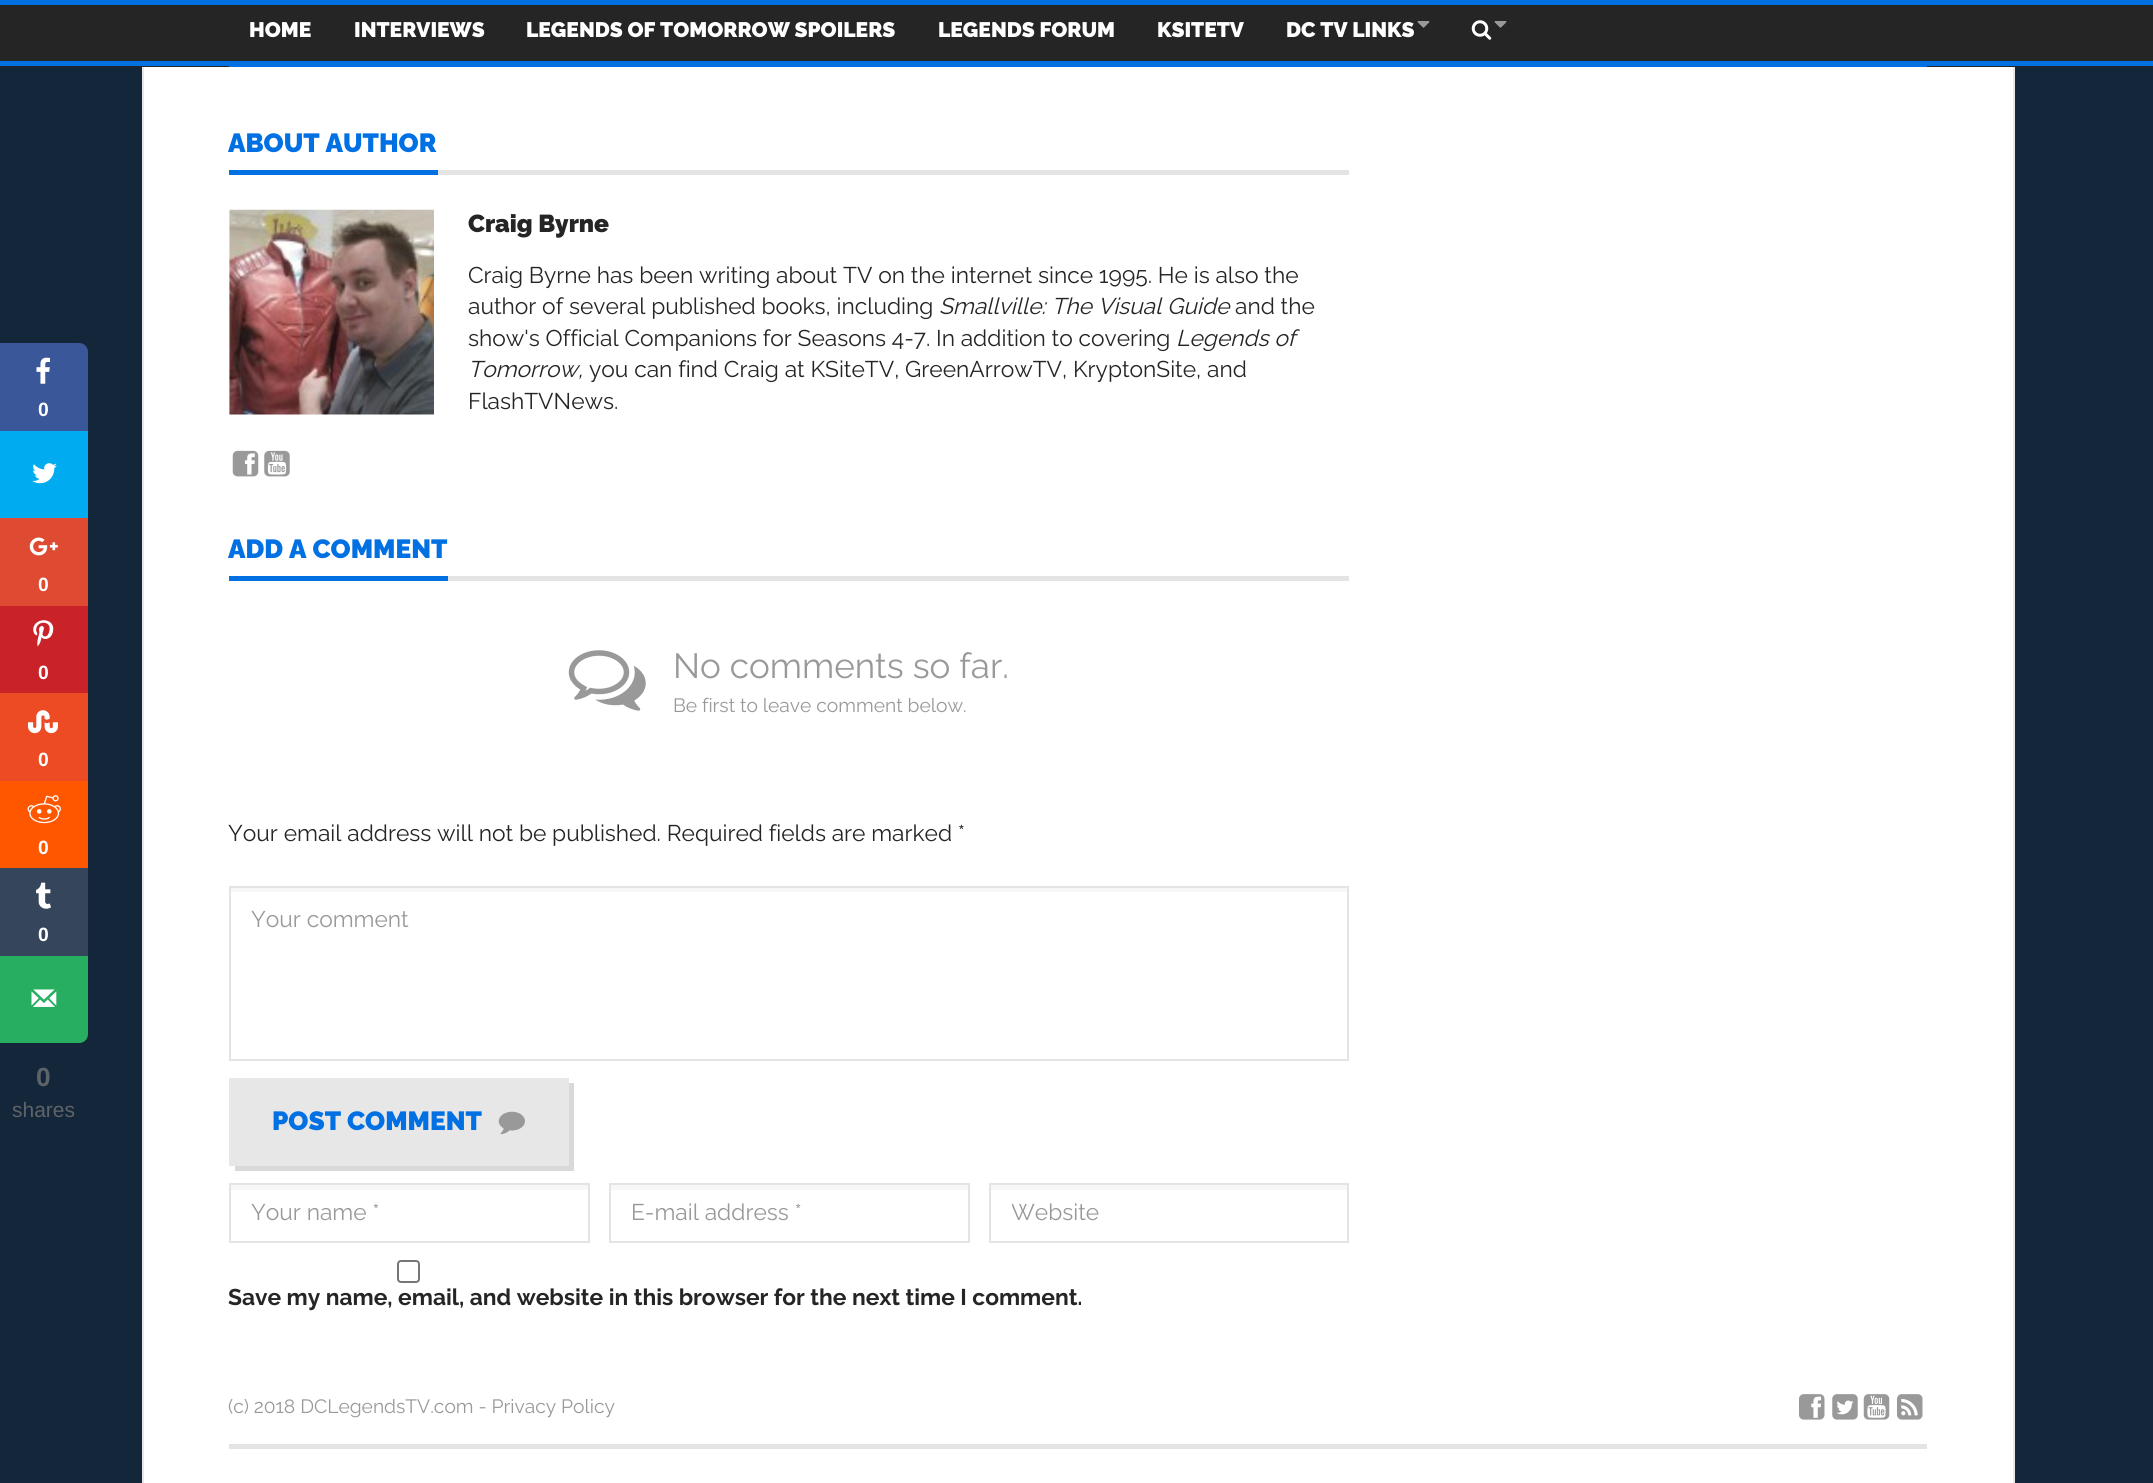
import math
import cairocffi as cairo

surface = cairo.ImageSurface(cairo.FORMAT_RGB24, 2153, 1483)
ctx = cairo.Context(surface)
options = cairo.FontOptions()
options.set_hint_metrics(cairo.HINT_METRICS_OFF)
options.set_hint_style(cairo.HINT_STYLE_NONE)
ctx.set_font_options(options)
ctx.set_miter_limit(4)


def rgb(r, g, b):
    ctx.set_source_rgb(r / 255, g / 255, b / 255)


def face(family, size, italic, bold):
    ctx.select_font_face(family, cairo.FONT_SLANT_ITALIC if italic else cairo.FONT_SLANT_NORMAL, cairo.FONT_WEIGHT_BOLD if bold else cairo.FONT_WEIGHT_NORMAL)
    ctx.set_font_size(size)


def label(x, y, s):
    ctx.move_to(x, y)
    ctx.show_text(s)


def rect(x, y, w, h):
    ctx.rectangle(x, y, w, h)
    ctx.fill()


def rrect(x, y, w, h, r):
    ctx.new_sub_path()
    for i, (u, v) in enumerate([(x + w - r, y + h - r), (x + r, y + h - r), (x + r, y + r), (x + w - r, y + r)]):
        ctx.arc(u, v, r, i * math.pi / 2, (i + 1) * math.pi / 2)
    ctx.close_path()


def image(path, x, y, w, h):
    ctx.save()
    ctx.set_source_surface(cairo.ImageSurface.create_from_png(path), x, y)
    ctx.rectangle(x, y, w, h)
    ctx.fill()
    ctx.restore()


rgb(20, 39, 58)
ctx.paint()
rgb(0, 112, 227)
rect(0, 0, 2153, 5)
rgb(37, 37, 37)
rect(0, 5, 2153, 62)
rgb(0, 112, 227)
rect(0, 61, 2153, 5)
ctx.new_path()
ctx.move_to(229, 5)
ctx.line_to(229, 67)
ctx.line_to(1927, 67)
ctx.line_to(1927, 5)
ctx.line_to(1927, 61)
ctx.line_to(229, 61)
ctx.close_path()
ctx.fill()
face('Raleway Black', 21, 0, 0)
rgb(255, 255, 255)
label(249, 37, 'HOME')
label(354, 37, 'INTERVIEWS')
label(526, 37, 'LEGENDS OF TOMORROW SPOILERS')
label(938, 37, 'LEGENDS FORUM')
label(1157, 37, 'KSITETV')
label(1286, 37, 'DC TV LINKS')
image('image0.png', 1417, 21, 13, 7)
image('image1.png', 1471, 20, 21, 20)
image('image0.png', 1494, 21, 13, 7)
rect(144, 67, 1869, 1416)
rgb(232, 232, 232)
rect(2013, 67, 2, 1416)
rect(142, 67, 2, 1416)
rgb(58, 87, 154)
ctx.new_path()
ctx.move_to(2, 345)
ctx.line_to(79, 345)
ctx.curve_to(83, 345, 86, 348, 86, 352)
ctx.line_to(86, 429)
ctx.line_to(2, 429)
ctx.close_path()
ctx.fill_preserve()
ctx.set_line_width(4)
ctx.stroke()
image('image2.png', 36, 357, 14, 27)
face('Liberation Sans', 19.25, 0, 1)
rgb(255, 255, 255)
label(38, 416, '0')
rgb(0, 171, 240)
rect(0, 431, 88, 87)
image('image3.png', 32, 463, 25, 21)
rgb(223, 74, 50)
rect(0, 518, 88, 88)
image('image4.png', 29, 537, 29, 19)
rgb(255, 255, 255)
label(38, 591, '0')
rgb(201, 34, 40)
rect(0, 606, 88, 87)
image('image5.png', 33, 620, 21, 27)
rgb(255, 255, 255)
label(38, 679, '0')
rgb(236, 75, 36)
rect(0, 693, 88, 88)
image('image6.png', 28, 710, 30, 24)
rgb(255, 255, 255)
label(38, 766, '0')
rgb(255, 87, 0)
rect(0, 781, 88, 87)
image('image7.png', 27, 795, 34, 29)
rgb(255, 255, 255)
label(38, 854, '0')
rgb(53, 70, 92)
rect(0, 868, 88, 88)
image('image8.png', 36, 882, 15, 27)
rgb(255, 255, 255)
label(38, 941, '0')
rgb(39, 174, 96)
ctx.new_path()
ctx.move_to(2, 958)
ctx.line_to(86, 958)
ctx.line_to(86, 1034)
ctx.curve_to(86, 1038, 83, 1041, 79, 1041)
ctx.line_to(2, 1041)
ctx.close_path()
ctx.fill_preserve()
ctx.stroke()
image('image9.png', 31, 989, 26, 18)
face('Liberation Sans', 26.25, 0, 1)
rgb(93, 99, 104)
label(36, 1086, '0')
face('Liberation Sans', 21, 0, 0)
label(12, 1117, 'shares')
rgb(228, 228, 228)
rect(438, 170, 911, 5)
rgb(0, 112, 227)
rect(229, 170, 209, 5)
face('Raleway Black', 26.25, 0, 0)
label(228, 152, 'ABOUT AUTHOR')
image('image10.png', 229, 209, 205, 206)
face('Raleway Black', 24.5, 0, 0)
rgb(37, 37, 37)
label(468, 232, 'Craig Byrne')
face('Raleway', 22.75, 0, 0)
label(468, 283, 'Craig Byrne has been writing about TV on the internet since 1995. He is also the')
label(468, 314, 'author of several published books, including')
face('Raleway', 22.75, 1, 0)
label(939, 314, 'Smallville: The Visual Guide')
face('Raleway', 22.75, 0, 0)
label(1235, 314, 'and the')
label(468, 346, 'show\'s Official Companions for Seasons 4-7. In addition to covering')
face('Raleway', 22.75, 1, 0)
label(1176, 346, 'Legends of')
label(468, 377, 'Tomorrow,')
face('Raleway', 22.75, 0, 0)
label(589, 377, 'you can find Craig at KSiteTV, GreenArrowTV, KryptonSite, and')
label(468, 409, 'FlashTVNews.')
image('image11.png', 232, 450, 27, 27)
image('image12.png', 264, 450, 26, 27)
rgb(228, 228, 228)
rect(448, 576, 901, 5)
rgb(0, 112, 227)
rect(229, 576, 219, 5)
face('Raleway Black', 26.25, 0, 0)
label(228, 558, 'ADD A COMMENT')
image('image13.png', 568, 650, 78, 61)
face('Raleway', 35, 0, 0)
rgb(153, 153, 153)
label(673, 678, 'No comments so far.')
face('Raleway', 19.25, 0, 0)
label(673, 712, 'Be first to leave comment below.')
face('Raleway', 22.75, 0, 0)
rgb(37, 37, 37)
label(228, 841, 'Your email address will not be published. Required fields are marked *')
rgb(247, 247, 247)
rect(231, 888, 1117, 4)
ctx.rectangle(230, 887, 1118, 173)
rgb(228, 228, 228)
ctx.set_line_width(2)
ctx.stroke()
rgb(153, 153, 153)
label(251, 927, 'Your comment')
rgb(217, 217, 217)
ctx.new_path()
ctx.move_to(235, 1166)
ctx.line_to(235, 1171)
ctx.line_to(574, 1171)
ctx.line_to(574, 1083)
ctx.line_to(569, 1083)
ctx.line_to(569, 1166)
ctx.close_path()
ctx.fill()
rgb(231, 231, 231)
rect(229, 1078, 340, 88)
face('Raleway Black', 26.25, 0, 0)
rgb(0, 112, 227)
label(272, 1130, 'POST COMMENT')
image('image14.png', 498, 1111, 27, 24)
rgb(247, 247, 247)
rect(231, 1185, 357, 5)
ctx.rectangle(230, 1184, 359, 58)
rgb(228, 228, 228)
ctx.stroke()
face('Raleway', 22.75, 0, 0)
rgb(153, 153, 153)
label(251, 1220, 'Your name *')
rgb(247, 247, 247)
rect(611, 1185, 357, 5)
ctx.rectangle(610, 1184, 359, 58)
rgb(228, 228, 228)
ctx.stroke()
rgb(153, 153, 153)
label(631, 1220, 'E-mail address *')
rgb(247, 247, 247)
rect(991, 1185, 357, 5)
ctx.rectangle(990, 1184, 358, 58)
rgb(228, 228, 228)
ctx.stroke()
ctx.save()
ctx.rectangle(1012, 1199, 315, 26)
ctx.clip()
rgb(153, 153, 153)
label(1011, 1220, 'Website')
ctx.restore()
rrect(398, 1261, 21, 21, 3)
rgb(118, 118, 118)
ctx.stroke()
face('Raleway', 22.75, 0, 1)
rgb(37, 37, 37)
label(228, 1305, 'Save my name, email, and website in this browser for the next time I comment.')
rgb(228, 228, 228)
rect(229, 1444, 1698, 5)
face('Raleway', 19.25, 0, 0)
rgb(153, 153, 153)
label(228, 1413, '(c) 2018 DCLegendsTV.com - Privacy Policy')
image('image15.png', 1799, 1394, 26, 26)
image('image16.png', 1832, 1394, 26, 26)
image('image17.png', 1863, 1394, 27, 26)
image('image18.png', 1897, 1394, 26, 26)
surface.write_to_png('render.png')
